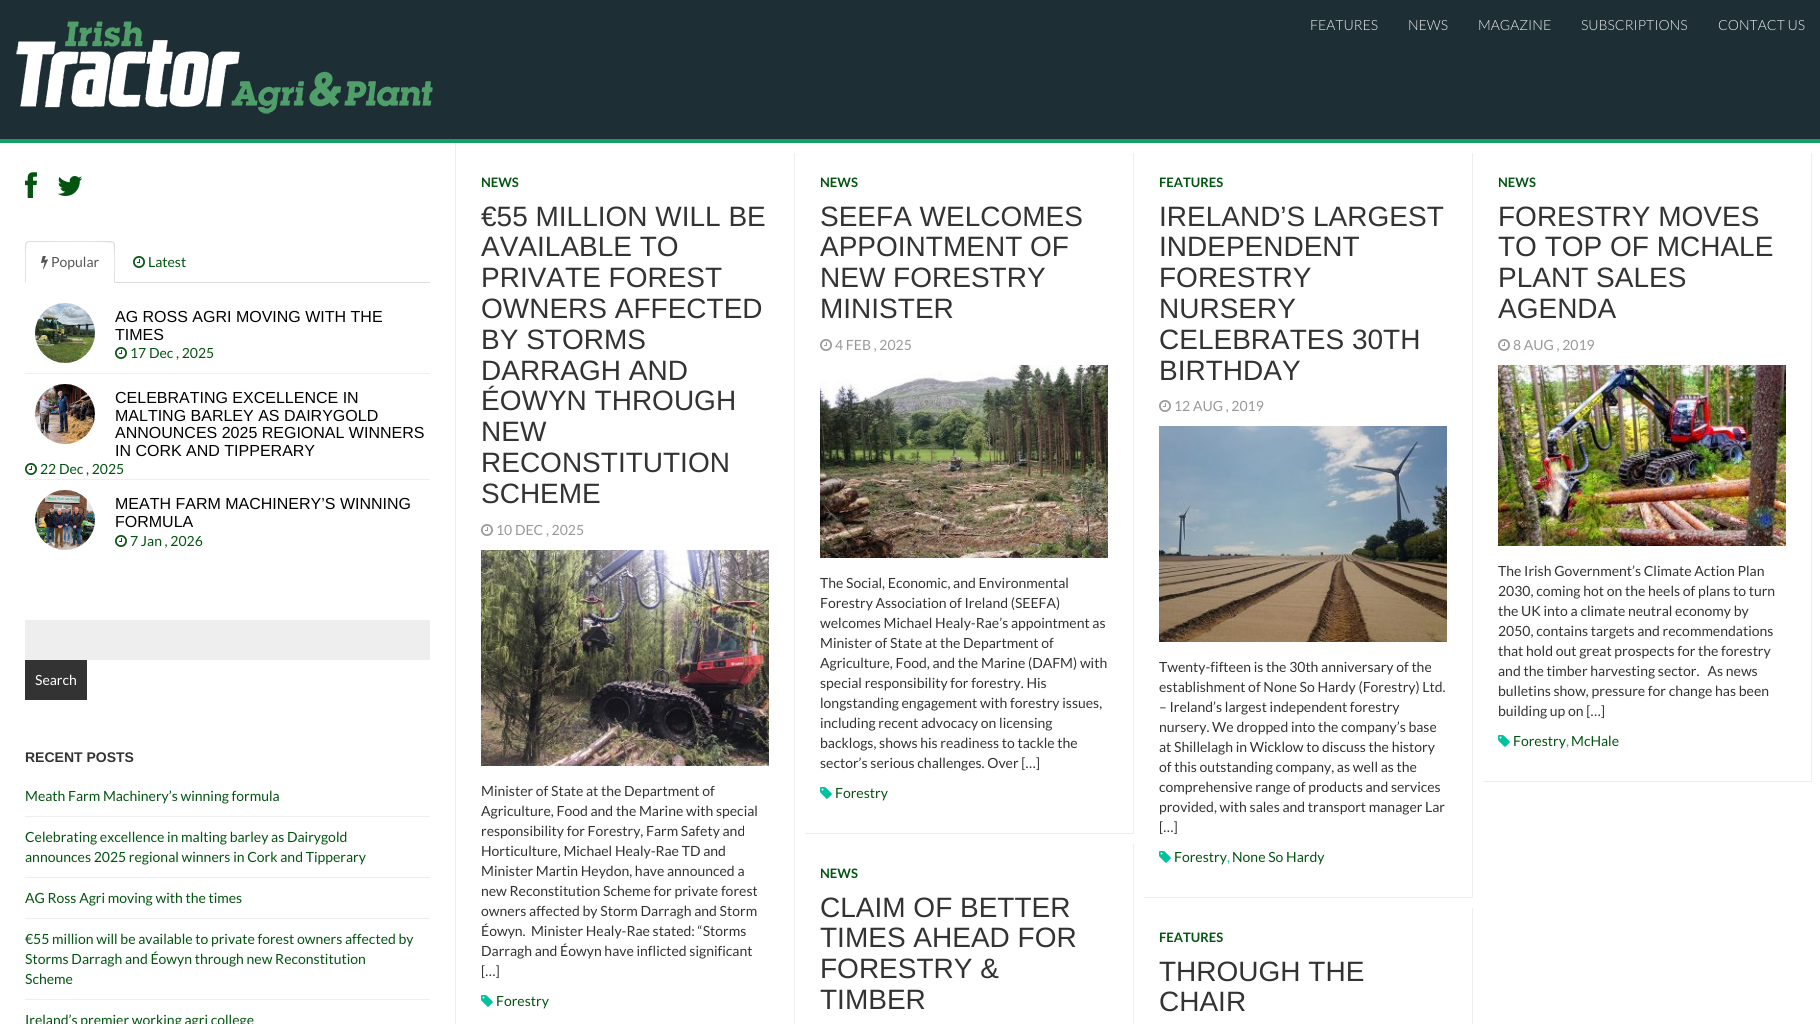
import math
import cairocffi as cairo

surface = cairo.ImageSurface(cairo.FORMAT_RGB24, 1820, 1024)
ctx = cairo.Context(surface)
options = cairo.FontOptions()
options.set_hint_metrics(cairo.HINT_METRICS_OFF)
options.set_hint_style(cairo.HINT_STYLE_NONE)
ctx.set_font_options(options)
ctx.set_miter_limit(4)


def rgb(r, g, b):
    ctx.set_source_rgb(r / 255, g / 255, b / 255)


def face(family, size, italic, bold):
    ctx.select_font_face(family, cairo.FONT_SLANT_ITALIC if italic else cairo.FONT_SLANT_NORMAL, cairo.FONT_WEIGHT_BOLD if bold else cairo.FONT_WEIGHT_NORMAL)
    ctx.set_font_size(size)


def label(x, y, s):
    ctx.move_to(x, y)
    ctx.show_text(s)


def rect(x, y, w, h):
    ctx.rectangle(x, y, w, h)
    ctx.fill()


def image(path, x, y, w, h):
    ctx.save()
    ctx.set_source_surface(cairo.ImageSurface.create_from_png(path), x, y)
    ctx.rectangle(x, y, w, h)
    ctx.fill()
    ctx.restore()


rgb(255, 255, 255)
ctx.paint()
rgb(29, 46, 53)
rect(0, 0, 1820, 139)
rgb(21, 160, 101)
rect(0, 139, 1820, 4)
image('image0.png', 16, 21, 417, 93)
face('Lato Light', 14, 0, 0)
rgb(240, 240, 240)
label(1310, 30, 'FEATURES')
label(1408, 30, 'NEWS')
label(1478, 30, 'MAGAZINE')
label(1581, 30, 'SUBSCRIPTIONS')
label(1718, 30, 'CONTACT US')
image('image1.png', 25, 172, 12, 26)
image('image2.png', 57, 176, 26, 20)
rgb(221, 221, 221)
rect(115, 282, 315, 1)
ctx.new_path()
ctx.move_to(29, 241)
ctx.line_to(26, 242)
ctx.line_to(27, 243)
ctx.line_to(29, 242)
ctx.line_to(43, 242)
ctx.curve_to(50, 242, 111, 241, 113, 243)
ctx.line_to(114, 242)
ctx.line_to(111, 241)
ctx.close_path()
ctx.fill()
ctx.new_path()
ctx.move_to(115, 283)
ctx.line_to(115, 245)
ctx.curve_to(115, 244, 114, 243, 114, 242)
ctx.line_to(113, 243)
ctx.curve_to(115, 245, 114, 277, 114, 282)
ctx.close_path()
ctx.fill()
ctx.new_path()
ctx.move_to(25, 283)
ctx.line_to(26, 282)
ctx.curve_to(26, 277, 25, 245, 27, 243)
ctx.line_to(26, 242)
ctx.line_to(25, 245)
ctx.close_path()
ctx.fill()
image('image3.png', 41, 256, 7, 13)
face('Lato', 14, 0, 0)
rgb(85, 85, 85)
label(51, 267, 'Popular')
image('image4.png', 133, 256, 12, 12)
rgb(3, 84, 16)
label(148, 267, 'Latest')
rgb(240, 239, 239)
rect(25, 373, 405, 1)
image('image5.png', 35, 303, 60, 60)
face('Liberation Sans', 16, 0, 0)
rgb(0, 0, 0)
label(115, 322, 'AG ROSS AGRI MOVING WITH THE')
label(115, 340, 'TIMES')
image('image4.png', 115, 347, 12, 12)
face('Lato', 14, 0, 0)
rgb(3, 84, 16)
label(130, 358, '17 Dec , 2025')
rgb(240, 239, 239)
rect(25, 479, 405, 1)
image('image6.png', 35, 384, 60, 60)
face('Liberation Sans', 16, 0, 0)
rgb(0, 0, 0)
label(115, 403, 'CELEBRATING EXCELLENCE IN')
label(115, 421, 'MALTING BARLEY AS DAIRYGOLD')
label(115, 438, 'ANNOUNCES 2025 REGIONAL WINNERS')
label(115, 456, 'IN CORK AND TIPPERARY')
image('image4.png', 25, 463, 12, 12)
face('Lato', 14, 0, 0)
rgb(3, 84, 16)
label(40, 474, '22 Dec , 2025')
image('image7.png', 35, 490, 60, 60)
face('Liberation Sans', 16, 0, 0)
rgb(0, 0, 0)
label(115, 509, 'MEATH FARM MACHINERY’S WINNING')
label(115, 527, 'FORMULA')
image('image4.png', 115, 535, 12, 12)
face('Lato', 14, 0, 0)
rgb(3, 84, 16)
label(130, 546, '7 Jan , 2026')
rgb(238, 238, 238)
rect(25, 620, 405, 40)
rgb(51, 51, 51)
rect(25, 660, 62, 40)
rgb(255, 255, 255)
label(35, 685, 'Search')
face('Liberation Sans', 14, 0, 1)
rgb(51, 51, 51)
label(25, 762, 'RECENT POSTS')
rgb(238, 238, 238)
rect(25, 816, 405, 1)
face('Lato', 14, 0, 0)
rgb(3, 84, 16)
label(25, 801, 'Meath Farm Machinery’s winning formula')
rgb(238, 238, 238)
rect(25, 877, 405, 1)
rgb(3, 84, 16)
label(25, 842, 'Celebrating excellence in malting barley as Dairygold')
label(25, 862, 'announces 2025 regional winners in Cork and Tipperary')
rgb(238, 238, 238)
rect(25, 918, 405, 1)
rgb(3, 84, 16)
label(25, 903, 'AG Ross Agri moving with the times')
rgb(238, 238, 238)
rect(25, 999, 405, 1)
rgb(3, 84, 16)
label(25, 944, '€55 million will be available to private forest owners affected by')
label(25, 964, 'Storms Darragh and Éowyn through new Reconstitution')
label(25, 984, 'Scheme')
label(25, 1025, 'Ireland’s premier working agri college')
rgb(238, 238, 238)
rect(455, 143, 1, 881)
rect(794, 153, 1, 871)
face('Lato', 13, 0, 1)
rgb(3, 84, 16)
label(481, 187, 'NEWS')
face('Liberation Sans', 28, 0, 0)
rgb(51, 51, 51)
label(481, 226, '€55 MILLION WILL BE')
label(481, 256, 'AVAILABLE TO')
label(481, 287, 'PRIVATE FOREST')
label(481, 318, 'OWNERS AFFECTED')
label(481, 349, 'BY STORMS')
label(481, 380, 'DARRAGH AND')
label(481, 410, 'ÉOWYN THROUGH')
label(481, 441, 'NEW')
label(481, 472, 'RECONSTITUTION')
label(481, 503, 'SCHEME')
image('image8.png', 481, 524, 12, 12)
face('Lato', 14, 0, 0)
rgb(153, 153, 153)
label(496, 535, '10 DEC , 2025')
image('image9.png', 481, 550, 288, 216)
rgb(51, 51, 51)
label(481, 796, 'Minister of State at the Department of')
label(481, 816, 'Agriculture, Food and the Marine with special')
label(481, 836, 'responsibility for Forestry, Farm Safety and')
label(481, 856, 'Horticulture, Michael Healy-Rae TD and')
label(481, 876, 'Minister Martin Heydon, have announced a')
label(481, 896, 'new Reconstitution Scheme for private forest')
label(481, 916, 'owners affected by Storm Darragh and Storm')
label(481, 936, 'Éowyn.  Minister Healy-Rae stated: “Storms')
label(481, 956, 'Darragh and Éowyn have inflicted significant')
label(481, 976, '[…]')
image('image10.png', 481, 995, 12, 12)
rgb(3, 84, 16)
label(496, 1006, 'Forestry')
rgb(238, 238, 238)
rect(1133, 153, 1, 681)
rect(805, 833, 329, 1)
face('Lato', 13, 0, 1)
rgb(3, 84, 16)
label(820, 187, 'NEWS')
face('Liberation Sans', 28, 0, 0)
rgb(51, 51, 51)
label(820, 226, 'SEEFA WELCOMES')
label(820, 256, 'APPOINTMENT OF')
label(820, 287, 'NEW FORESTRY')
label(820, 318, 'MINISTER')
image('image8.png', 820, 339, 12, 12)
face('Lato', 14, 0, 0)
rgb(153, 153, 153)
label(835, 350, '4 FEB , 2025')
image('image11.png', 820, 365, 288, 193)
rgb(51, 51, 51)
label(820, 588, 'The Social, Economic, and Environmental')
label(820, 608, 'Forestry Association of Ireland (SEEFA)')
label(820, 628, 'welcomes Michael Healy-Rae’s appointment as')
label(820, 648, 'Minister of State at the Department of')
label(820, 668, 'Agriculture, Food, and the Marine (DAFM) with')
label(820, 688, 'special responsibility for forestry. His')
label(820, 708, 'longstanding engagement with forestry issues,')
label(820, 728, 'including recent advocacy on licensing')
label(820, 748, 'backlogs, shows his readiness to tackle the')
label(820, 768, 'sector’s serious challenges. Over […]')
image('image10.png', 820, 787, 12, 12)
rgb(3, 84, 16)
label(835, 798, 'Forestry')
rgb(238, 238, 238)
rect(1472, 153, 1, 745)
rect(1144, 897, 329, 1)
face('Lato', 13, 0, 1)
rgb(3, 84, 16)
label(1159, 187, 'FEATURES')
face('Liberation Sans', 28, 0, 0)
rgb(51, 51, 51)
label(1159, 226, 'IRELAND’S LARGEST')
label(1159, 256, 'INDEPENDENT')
label(1159, 287, 'FORESTRY')
label(1159, 318, 'NURSERY')
label(1159, 349, 'CELEBRATES 30TH')
label(1159, 380, 'BIRTHDAY')
image('image8.png', 1159, 400, 12, 12)
face('Lato', 14, 0, 0)
rgb(153, 153, 153)
label(1174, 411, '12 AUG , 2019')
image('image12.png', 1159, 426, 288, 216)
rgb(51, 51, 51)
label(1159, 672, 'Twenty-fifteen is the 30th anniversary of the')
label(1159, 692, 'establishment of None So Hardy (Forestry) Ltd.')
label(1159, 712, '– Ireland’s largest independent forestry')
label(1159, 732, 'nursery. We dropped into the company’s base')
label(1159, 752, 'at Shillelagh in Wicklow to discuss the history')
label(1159, 772, 'of this outstanding company, as well as the')
label(1159, 792, 'comprehensive range of products and services')
label(1159, 812, 'provided, with sales and transport manager Lar')
label(1159, 832, '[…]')
image('image10.png', 1159, 851, 12, 12)
rgb(3, 84, 16)
label(1174, 862, 'Forestry')
rgb(2, 194, 157)
label(1227, 862, ',')
rgb(3, 84, 16)
label(1232, 862, 'None So Hardy')
rgb(238, 238, 238)
rect(1811, 153, 1, 629)
rect(1483, 781, 329, 1)
face('Lato', 13, 0, 1)
rgb(3, 84, 16)
label(1498, 187, 'NEWS')
face('Liberation Sans', 28, 0, 0)
rgb(51, 51, 51)
label(1498, 226, 'FORESTRY MOVES')
label(1498, 256, 'TO TOP OF MCHALE')
label(1498, 287, 'PLANT SALES')
label(1498, 318, 'AGENDA')
image('image8.png', 1498, 339, 12, 12)
face('Lato', 14, 0, 0)
rgb(153, 153, 153)
label(1513, 350, '8 AUG , 2019')
image('image13.png', 1498, 365, 288, 181)
rgb(51, 51, 51)
label(1498, 576, 'The Irish Government’s Climate Action Plan')
label(1498, 596, '2030, coming hot on the heels of plans to turn')
label(1498, 616, 'the UK into a climate neutral economy by')
label(1498, 636, '2050, contains targets and recommendations')
label(1498, 656, 'that hold out great prospects for the forestry')
label(1498, 676, 'and the timber harvesting sector.   As news')
label(1498, 696, 'bulletins show, pressure for change has been')
label(1498, 716, 'building up on […]')
image('image10.png', 1498, 735, 12, 12)
rgb(3, 84, 16)
label(1513, 746, 'Forestry')
rgb(2, 194, 157)
label(1566, 746, ',')
rgb(3, 84, 16)
label(1571, 746, 'McHale')
rgb(238, 238, 238)
rect(1133, 844, 1, 180)
face('Lato', 13, 0, 1)
rgb(3, 84, 16)
label(820, 878, 'NEWS')
face('Liberation Sans', 28, 0, 0)
rgb(51, 51, 51)
label(820, 917, 'CLAIM OF BETTER')
label(820, 947, 'TIMES AHEAD FOR')
label(820, 978, 'FORESTRY &')
label(820, 1009, 'TIMBER')
rgb(238, 238, 238)
rect(1472, 908, 1, 116)
face('Lato', 13, 0, 1)
rgb(3, 84, 16)
label(1159, 942, 'FEATURES')
face('Liberation Sans', 28, 0, 0)
rgb(51, 51, 51)
label(1159, 981, 'THROUGH THE')
label(1159, 1011, 'CHAIR')
surface.write_to_png('render.png')
